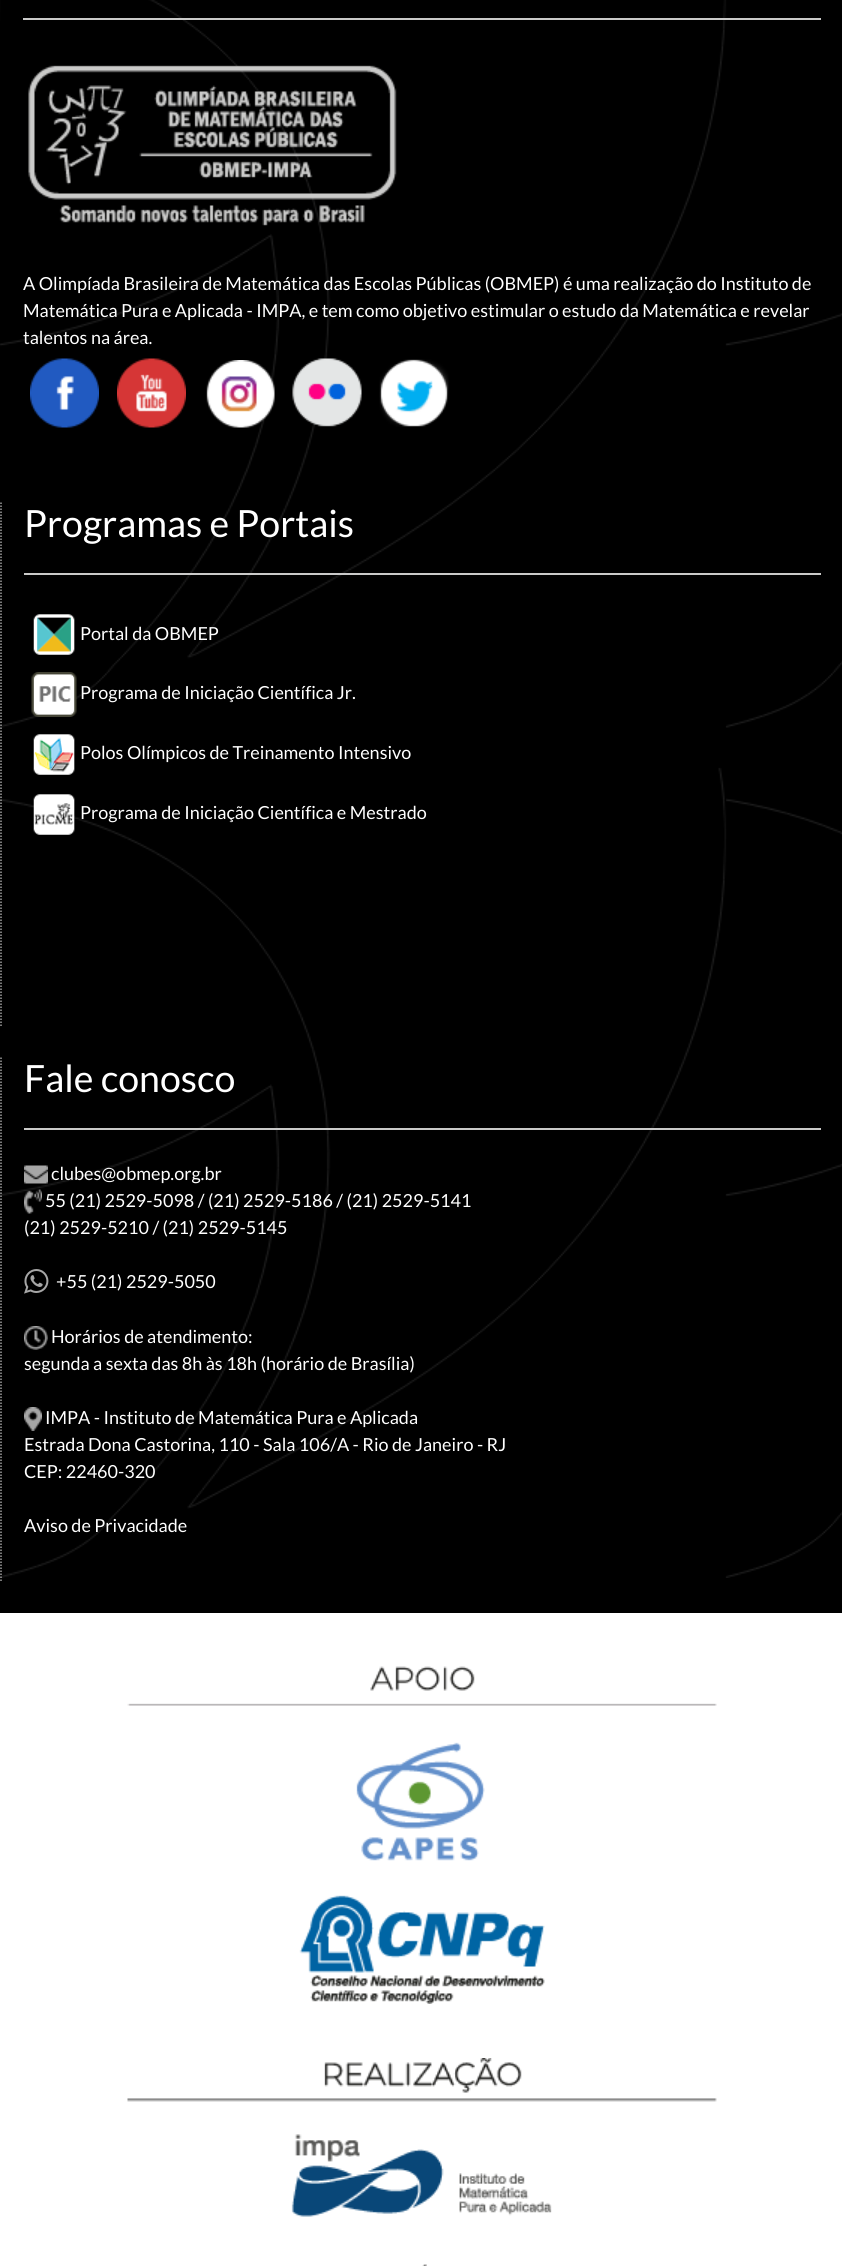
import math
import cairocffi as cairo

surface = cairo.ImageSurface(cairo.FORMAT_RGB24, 842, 2266)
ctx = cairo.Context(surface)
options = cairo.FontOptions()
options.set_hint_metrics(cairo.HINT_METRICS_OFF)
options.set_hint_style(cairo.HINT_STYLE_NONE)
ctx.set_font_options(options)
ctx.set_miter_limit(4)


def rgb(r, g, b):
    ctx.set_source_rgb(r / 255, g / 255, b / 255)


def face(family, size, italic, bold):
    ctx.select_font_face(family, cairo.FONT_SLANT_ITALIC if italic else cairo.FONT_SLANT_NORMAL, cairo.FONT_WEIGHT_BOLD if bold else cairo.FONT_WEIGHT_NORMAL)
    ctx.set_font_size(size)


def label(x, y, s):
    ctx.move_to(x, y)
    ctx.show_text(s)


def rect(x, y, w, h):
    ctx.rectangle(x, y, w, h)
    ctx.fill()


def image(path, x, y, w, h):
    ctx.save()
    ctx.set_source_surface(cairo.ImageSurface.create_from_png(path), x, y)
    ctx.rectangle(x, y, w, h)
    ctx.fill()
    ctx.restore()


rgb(255, 255, 255)
ctx.paint()
rgb(0, 0, 0)
rect(0, 0, 842, 1613)
image('image0.png', 0, 0, 842, 1578)
rgb(202, 202, 201)
rect(23, 18, 798, 2)
image('image1.png', 28, 65, 369, 161)
face('Lato', 18, 0, 0)
rgb(255, 255, 255)
label(23, 290, 'A Olimpíada Brasileira de Matemática das Escolas Públicas (OBMEP) é uma realização do Instituto de')
label(23, 317, 'Matemática Pura e Aplicada - IMPA, e tem como objetivo estimular o estudo da Matemática e revelar')
label(23, 344, 'talentos na área.')
image('image2.png', 30, 358, 69, 70)
image('image3.png', 117, 358, 69, 70)
image('image4.png', 206, 360, 69, 68)
image('image5.png', 292, 358, 70, 69)
image('image6.png', 379, 359, 70, 68)
ctx.new_path()
ctx.move_to(1, 502.5)
ctx.line_to(1, 1027.5)
rgb(159, 159, 159)
ctx.set_line_width(1.5)
ctx.set_dash([1.5, 1.5])
ctx.stroke()
face('Lato', 37.5, 0, 0)
rgb(255, 255, 255)
label(24, 537, 'Programas e Portais')
rgb(202, 202, 201)
rect(24, 573, 797, 2)
image('image7.png', 33, 614, 42, 41)
face('Lato', 18, 0, 0)
rgb(255, 255, 255)
label(80, 640, 'Portal da OBMEP')
image('image8.png', 31, 672, 46, 45)
label(80, 699, 'Programa de Iniciação Científica Jr.')
image('image9.png', 33, 734, 42, 41)
label(80, 759, 'Polos Olímpicos de Treinamento Intensivo')
image('image10.png', 33, 794, 42, 41)
label(80, 819, 'Programa de Iniciação Científica e Mestrado')
ctx.new_path()
ctx.move_to(1, 1057.5)
ctx.line_to(1, 1582.5)
rgb(159, 159, 159)
ctx.stroke()
face('Lato', 37.5, 0, 0)
rgb(255, 255, 255)
label(24, 1092, 'Fale conosco')
rgb(202, 202, 201)
rect(24, 1128, 797, 2)
image('image11.png', 24, 1165, 24, 19)
face('Lato', 18, 0, 0)
rgb(255, 255, 255)
label(51, 1180, 'clubes@obmep.org.br')
image('image12.png', 24, 1189, 18, 25)
label(45, 1207, '55 (21) 2529-5098 / (21) 2529-5186 / (21) 2529-5141')
label(24, 1234, '(21) 2529-5210 / (21) 2529-5145')
image('image13.png', 24, 1269, 25, 25)
label(56, 1288, '+55 (21) 2529-5050')
image('image14.png', 24, 1326, 24, 24)
label(51, 1343, 'Horários de atendimento:')
label(24, 1370, 'segunda a sexta das 8h às 18h (horário de Brasília)')
image('image15.png', 24, 1407, 18, 24)
label(45, 1424, 'IMPA - Instituto de Matemática Pura e Aplicada')
label(24, 1451, 'Estrada Dona Castorina, 110 - Sala 106/A - Rio de Janeiro - RJ')
label(24, 1478, 'CEP: 22460-320')
label(24, 1532, 'Aviso de Privacidade')
image('image16.png', 127, 1666, 590, 338)
image('image17.png', 127, 2058, 590, 208)
surface.write_to_png('render.png')
